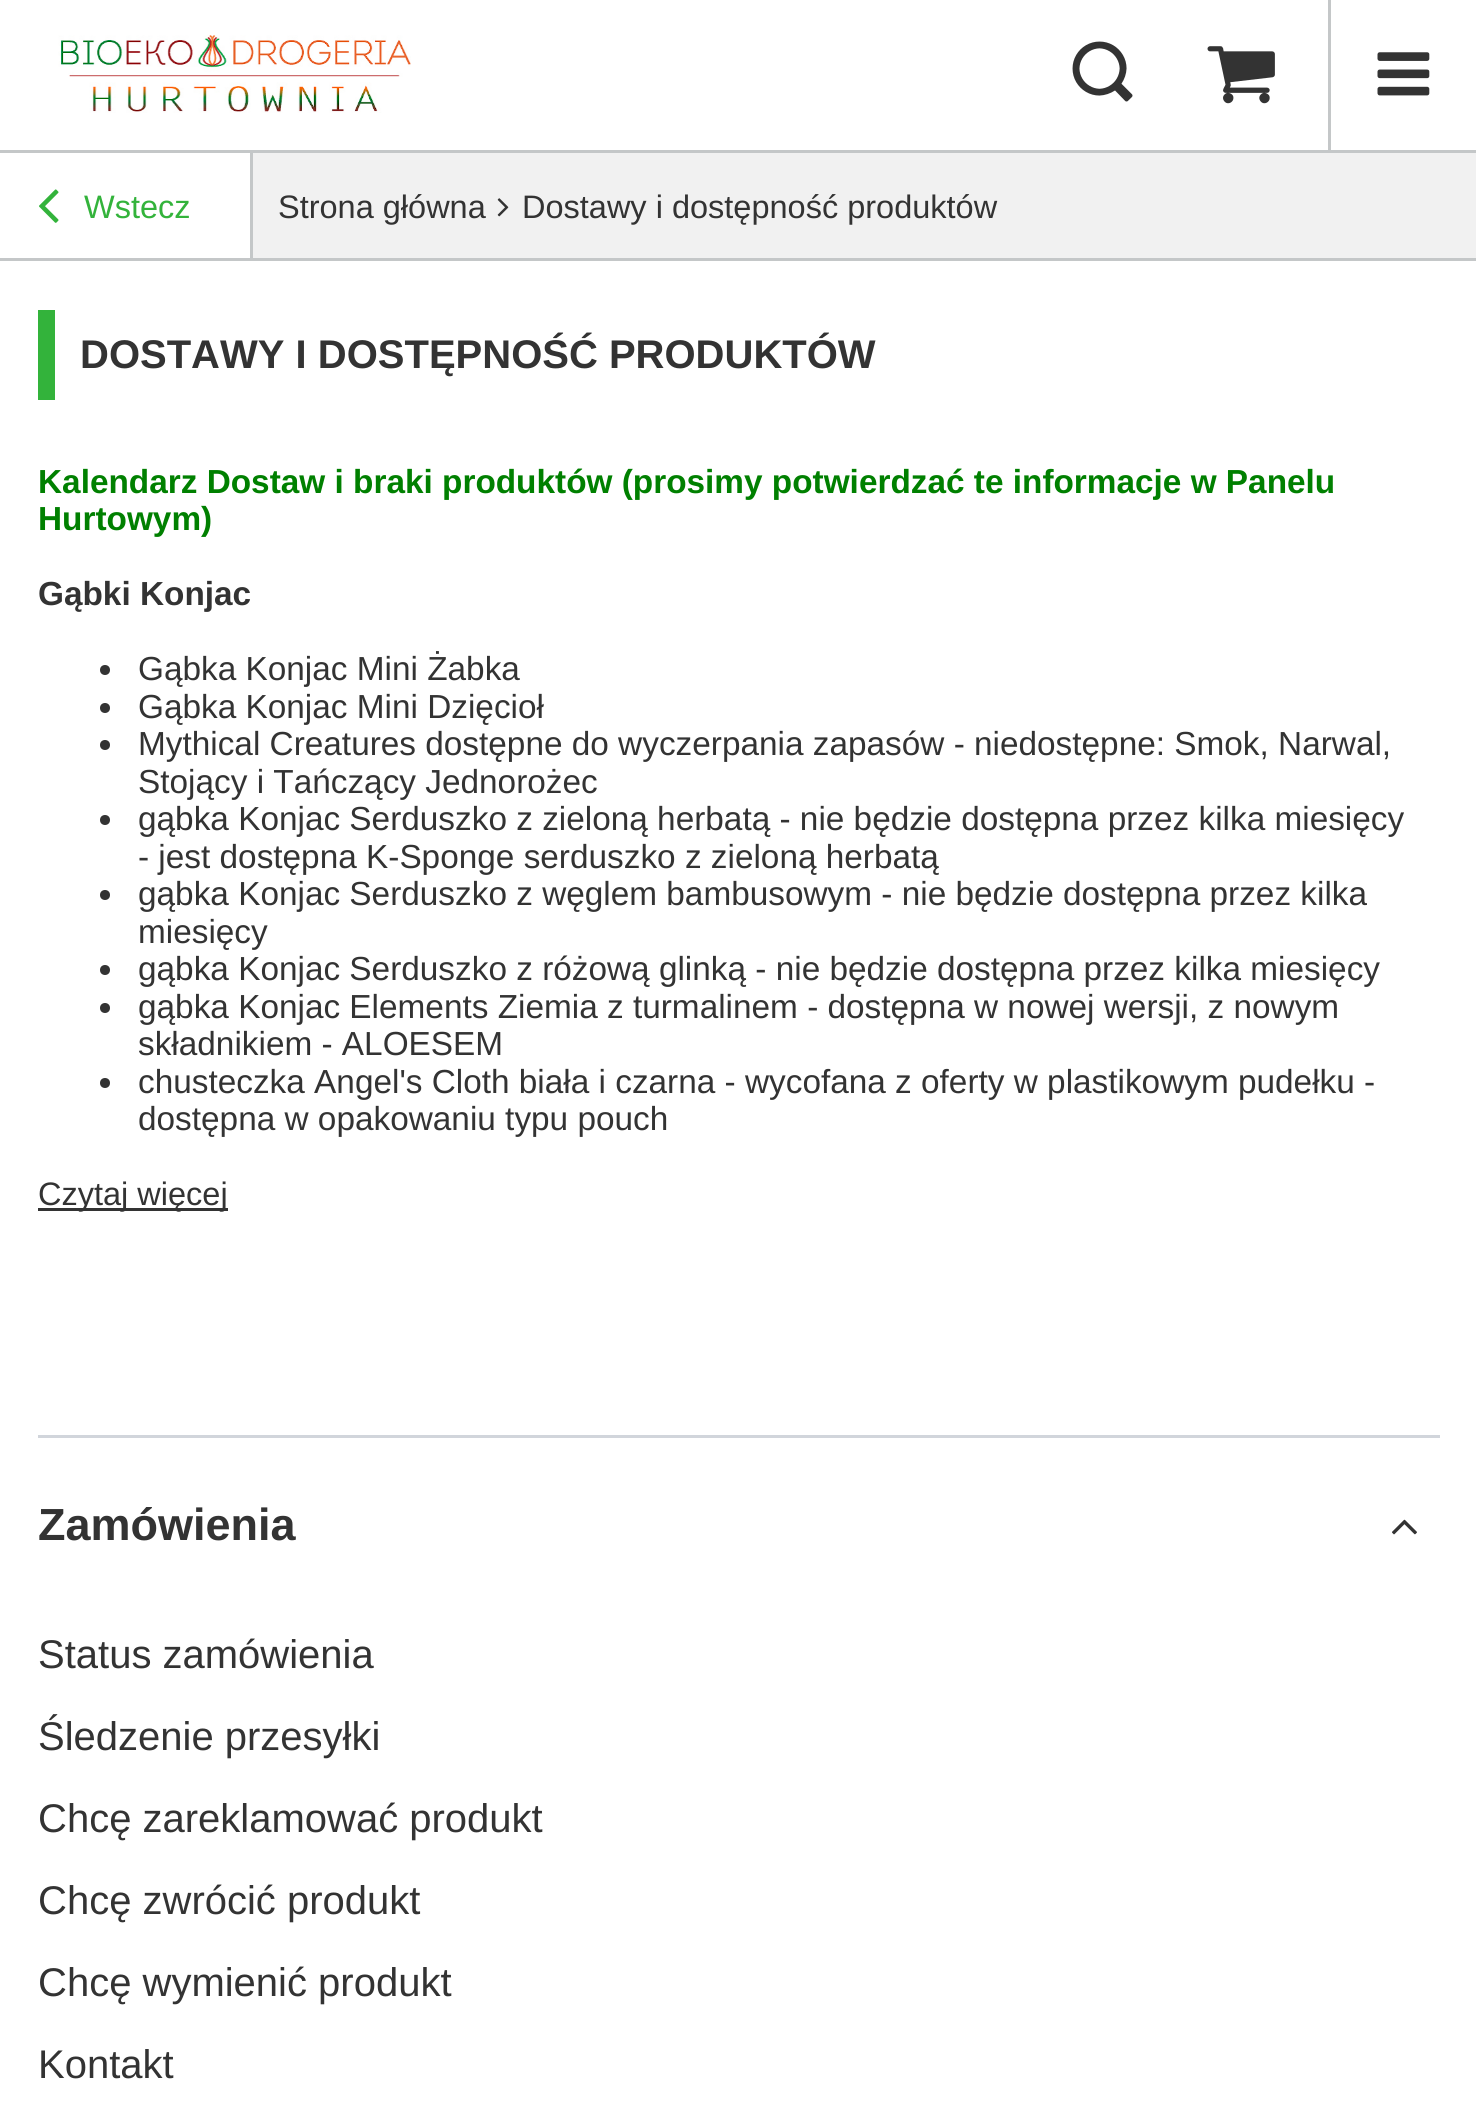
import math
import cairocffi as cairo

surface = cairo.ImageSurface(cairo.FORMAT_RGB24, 1476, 2115)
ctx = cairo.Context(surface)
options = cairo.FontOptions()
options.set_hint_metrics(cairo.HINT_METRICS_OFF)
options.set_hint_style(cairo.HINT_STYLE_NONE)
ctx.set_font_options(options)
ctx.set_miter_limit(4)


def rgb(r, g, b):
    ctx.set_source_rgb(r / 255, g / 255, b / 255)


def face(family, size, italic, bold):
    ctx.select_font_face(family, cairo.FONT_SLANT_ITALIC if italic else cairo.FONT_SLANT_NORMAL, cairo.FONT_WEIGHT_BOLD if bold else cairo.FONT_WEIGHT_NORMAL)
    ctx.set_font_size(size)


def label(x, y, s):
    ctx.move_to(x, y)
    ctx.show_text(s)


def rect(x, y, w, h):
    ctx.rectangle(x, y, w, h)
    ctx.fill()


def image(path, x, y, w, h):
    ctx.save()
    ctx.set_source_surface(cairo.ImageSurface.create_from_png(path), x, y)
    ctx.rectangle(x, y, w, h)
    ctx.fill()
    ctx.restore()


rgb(255, 255, 255)
ctx.paint()
rgb(196, 199, 200)
rect(0, 150, 1476, 3)
image('image0.png', 58, 35, 353, 78)
image('image1.png', 1072, 41, 61, 61)
image('image2.png', 1207, 46, 68, 58)
rect(1328, 0, 3, 150)
image('image3.png', 1377, 52, 53, 44)
rgb(241, 241, 241)
rect(253, 153, 1223, 105)
image('image4.png', 39, 189, 20, 34)
face('Liberation Sans', 32.5, 0, 0)
rgb(51, 179, 59)
label(84, 218, 'Wstecz')
rgb(196, 199, 200)
rect(250, 153, 3, 107)
rgb(51, 51, 51)
label(278, 218, 'Strona główna')
image('image5.png', 497, 198, 12, 19)
label(522, 218, 'Dostawy i dostępność produktów')
rgb(196, 199, 200)
rect(0, 258, 1476, 3)
rgb(51, 179, 59)
rect(38, 310, 17, 90)
face('Liberation Sans', 40, 0, 1)
rgb(51, 51, 51)
label(80, 368, 'DOSTAWY I DOSTĘPNOŚĆ PRODUKTÓW')
face('Liberation Sans', 33.35, 0, 1)
rgb(0, 128, 0)
label(38, 493, 'Kalendarz Dostaw i braki produktów (prosimy potwierdzać te informacje w Panelu')
label(38, 530, 'Hurtowym)')
rgb(51, 51, 51)
label(38, 605, 'Gąbki Konjac')
ctx.new_path()
ctx.arc(105, 670, 5, 0, 2 * math.pi)
ctx.fill()
face('Liberation Sans', 33.35, 0, 0)
label(138, 680, 'Gąbka Konjac Mini Żabka')
ctx.new_path()
ctx.arc(105, 708, 5, 0, 2 * math.pi)
ctx.fill()
label(138, 718, 'Gąbka Konjac Mini Dzięcioł')
ctx.new_path()
ctx.arc(105, 745, 5, 0, 2 * math.pi)
ctx.fill()
label(138, 755, 'Mythical Creatures dostępne do wyczerpania zapasów - niedostępne: Smok, Narwal,')
label(138, 793, 'Stojący i Tańczący Jednorożec')
ctx.new_path()
ctx.arc(105, 820, 5, 0, 2 * math.pi)
ctx.fill()
label(138, 830, 'gąbka Konjac Serduszko z zieloną herbatą - nie będzie dostępna przez kilka miesięcy')
label(138, 868, '- jest dostępna K-Sponge serduszko z zieloną herbatą')
ctx.new_path()
ctx.arc(105, 895, 5, 0, 2 * math.pi)
ctx.fill()
label(138, 905, 'gąbka Konjac Serduszko z węglem bambusowym - nie będzie dostępna przez kilka')
label(138, 943, 'miesięcy')
ctx.new_path()
ctx.arc(105, 970, 5, 0, 2 * math.pi)
ctx.fill()
label(138, 980, 'gąbka Konjac Serduszko z różową glinką - nie będzie dostępna przez kilka miesięcy')
ctx.new_path()
ctx.arc(105, 1008, 5, 0, 2 * math.pi)
ctx.fill()
label(138, 1018, 'gąbka Konjac Elements Ziemia z turmalinem - dostępna w nowej wersji, z nowym')
label(138, 1055, 'składnikiem - ALOESEM')
ctx.new_path()
ctx.arc(105, 1083, 5, 0, 2 * math.pi)
ctx.fill()
label(138, 1093, 'chusteczka Angel\'s Cloth biała i czarna - wycofana z oferty w plastikowym pudełku -')
label(138, 1130, 'dostępna w opakowaniu typu pouch')
rect(38, 1208, 190, 3)
face('Liberation Sans', 32.5, 0, 0)
label(38, 1205, 'Czytaj więcej')
rgb(209, 213, 219)
rect(38, 1435, 1402, 3)
face('Liberation Sans', 45, 0, 1)
rgb(51, 51, 51)
label(38, 1540, 'Zamówienia')
image('image6.png', 1392, 1519, 25, 16)
face('Liberation Sans', 40, 0, 0)
label(38, 1668, 'Status zamówienia')
label(38, 1750, 'Śledzenie przesyłki')
label(38, 1832, 'Chcę zareklamować produkt')
label(38, 1914, 'Chcę zwrócić produkt')
label(38, 1996, 'Chcę wymienić produkt')
label(38, 2078, 'Kontakt')
surface.write_to_png('render.png')
